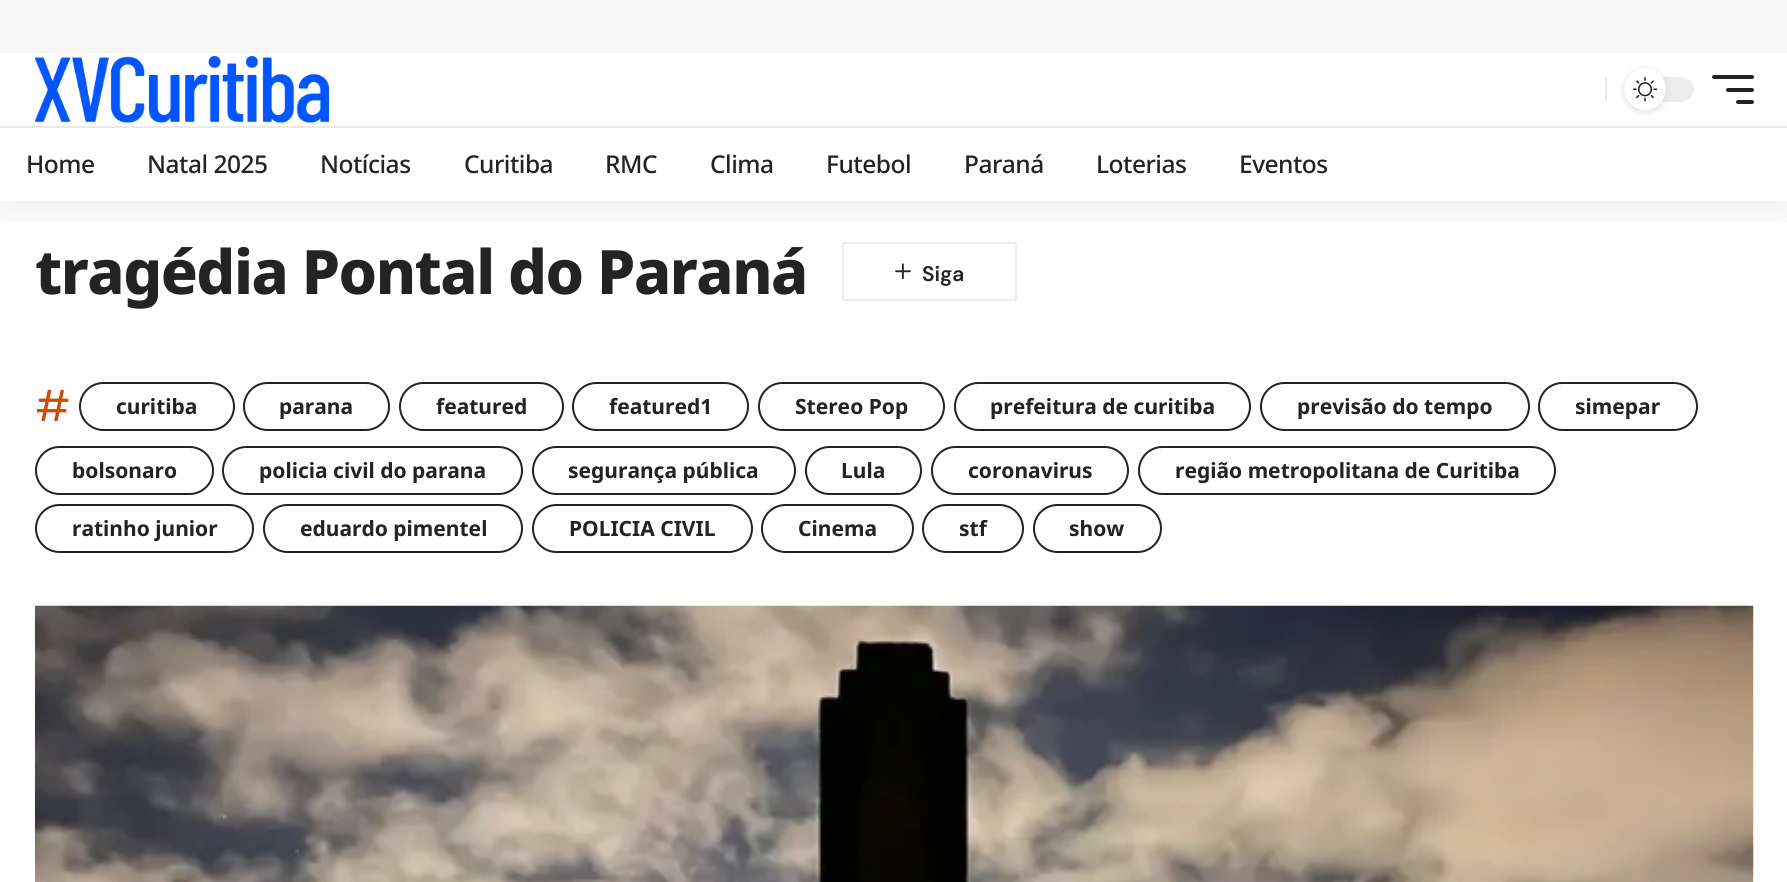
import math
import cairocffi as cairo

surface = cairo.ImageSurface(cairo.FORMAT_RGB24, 1787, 882)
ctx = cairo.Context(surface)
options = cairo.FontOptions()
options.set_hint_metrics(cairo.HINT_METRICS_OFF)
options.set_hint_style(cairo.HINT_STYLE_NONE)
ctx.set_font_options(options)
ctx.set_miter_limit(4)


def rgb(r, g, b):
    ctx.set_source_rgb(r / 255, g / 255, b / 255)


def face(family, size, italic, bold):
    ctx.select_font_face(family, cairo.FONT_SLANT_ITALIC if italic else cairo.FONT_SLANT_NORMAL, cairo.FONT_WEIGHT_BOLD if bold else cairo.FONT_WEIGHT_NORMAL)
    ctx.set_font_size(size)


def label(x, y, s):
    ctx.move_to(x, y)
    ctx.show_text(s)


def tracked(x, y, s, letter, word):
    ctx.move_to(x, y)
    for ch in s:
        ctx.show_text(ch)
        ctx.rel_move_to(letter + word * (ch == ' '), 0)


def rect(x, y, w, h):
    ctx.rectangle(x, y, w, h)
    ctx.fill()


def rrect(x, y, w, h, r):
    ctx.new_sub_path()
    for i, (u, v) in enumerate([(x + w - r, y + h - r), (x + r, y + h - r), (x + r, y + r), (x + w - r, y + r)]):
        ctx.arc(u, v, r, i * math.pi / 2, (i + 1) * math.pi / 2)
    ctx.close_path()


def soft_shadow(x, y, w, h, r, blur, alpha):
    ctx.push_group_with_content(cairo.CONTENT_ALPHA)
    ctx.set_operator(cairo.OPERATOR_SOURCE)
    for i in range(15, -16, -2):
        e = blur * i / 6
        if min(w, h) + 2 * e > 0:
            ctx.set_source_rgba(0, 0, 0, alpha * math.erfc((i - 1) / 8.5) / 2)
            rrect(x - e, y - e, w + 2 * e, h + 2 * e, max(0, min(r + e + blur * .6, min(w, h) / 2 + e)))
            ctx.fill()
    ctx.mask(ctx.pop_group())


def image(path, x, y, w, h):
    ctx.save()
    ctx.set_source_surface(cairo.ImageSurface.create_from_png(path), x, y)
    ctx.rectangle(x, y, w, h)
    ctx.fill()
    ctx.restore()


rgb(255, 255, 255)
ctx.paint()
rgb(247, 247, 247)
rect(0, 0, 1787, 53)
ctx.rectangle(843, 243, 173, 57)
rgb(237, 237, 237)
ctx.stroke()
image('image2.png', 895, 263, 16, 17)
ctx.save()
ctx.rectangle(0, 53, 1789, 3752)
ctx.clip()
ctx.rectangle(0, 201, 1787, 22)
ctx.clip()
rgb(0, 0, 0)
soft_shadow(0, 60, 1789, 148, 0, 26, 0.07)
ctx.restore()
image('image0.png', 35, 56, 294, 67)
rgb(234, 234, 234)
rect(1605, 77, 2, 25)
rgb(237, 237, 237)
rrect(1624, 77, 70, 25, 12.5)
ctx.fill()
rgb(0, 0, 0)
soft_shadow(1624, 70, 42, 42, 21, 3.5, 0.12)
rgb(255, 255, 255)
ctx.arc(1645, 89, 21, 0, 2 * math.pi)
ctx.fill()
image('image1.png', 1633, 77, 24, 25)
rgb(35, 35, 35)
rrect(1712, 75, 42, 4, 2)
ctx.fill()
rrect(1726, 88, 28, 4, 2)
ctx.fill()
rrect(1736, 100, 18, 4, 2)
ctx.fill()
rgb(234, 234, 234)
rect(0, 126, 1787, 2)
face('Noto Sans Medium', 24.5, 0, 0)
rgb(35, 35, 35)
tracked(26, 173, 'Home', -0.5, 0)
tracked(147, 173, 'Natal 2025', -0.5, 0)
tracked(320, 173, 'Notícias', -0.5, 0)
tracked(464, 173, 'Curitiba', -0.5, 0)
tracked(605, 173, 'RMC', -0.5, 0)
tracked(710, 173, 'Clima', -0.5, 0)
tracked(826, 173, 'Futebol', -0.5, 0)
tracked(964, 173, 'Paraná', -0.5, 0)
tracked(1096, 173, 'Loterias', -0.5, 0)
tracked(1239, 173, 'Eventos', -0.5, 0)
face('Noto Sans ExtraBold', 61.25, 0, 0)
tracked(35, 294, 'tragédia Pontal do Paraná', -1.5, 0)
face('DM Sans SemiBold', 21, 0, 0)
label(922, 281, 'Siga')
face('DM Sans', 44, 0, 0)
rgb(206, 73, 10)
label(35, 421, '#')
rrect(80, 383, 154, 47, 23.5)
rgb(35, 35, 35)
ctx.stroke()
face('Noto Sans', 21, 0, 1)
label(116, 414, 'curitiba')
rrect(244, 383, 145, 47, 23.5)
ctx.stroke()
label(279, 414, 'parana')
rrect(400, 383, 163, 47, 23.5)
ctx.stroke()
label(436, 414, 'featured')
rrect(573, 383, 175, 47, 23.5)
ctx.stroke()
label(609, 414, 'featured1')
rrect(759, 383, 185, 47, 23.5)
ctx.stroke()
label(795, 414, 'Stereo Pop')
rrect(955, 383, 295, 47, 23.5)
ctx.stroke()
label(990, 414, 'prefeitura de curitiba')
rrect(1261, 383, 268, 47, 23.5)
ctx.stroke()
label(1297, 414, 'previsão do tempo')
rrect(1539, 383, 158, 47, 23.5)
ctx.stroke()
label(1575, 414, 'simepar')
rrect(36, 447, 177, 47, 23.5)
ctx.stroke()
label(72, 478, 'bolsonaro')
rrect(223, 447, 299, 47, 23.5)
ctx.stroke()
label(259, 478, 'policia civil do parana')
rrect(533, 447, 262, 47, 23.5)
ctx.stroke()
label(568, 478, 'segurança pública')
rrect(806, 447, 115, 47, 23.5)
ctx.stroke()
label(841, 478, 'Lula')
rrect(932, 447, 196, 47, 23.5)
ctx.stroke()
label(968, 478, 'coronavirus')
rrect(1139, 447, 416, 47, 23.5)
ctx.stroke()
label(1175, 478, 'região metropolitana de Curitiba')
rrect(36, 505, 217, 47, 23.5)
ctx.stroke()
label(72, 536, 'ratinho junior')
rrect(264, 505, 258, 47, 23.5)
ctx.stroke()
label(300, 536, 'eduardo pimentel')
rrect(533, 505, 219, 47, 23.5)
ctx.stroke()
label(569, 536, 'POLICIA CIVIL')
rrect(762, 505, 151, 47, 23.5)
ctx.stroke()
label(798, 536, 'Cinema')
rrect(923, 505, 100, 47, 23.5)
ctx.stroke()
label(959, 536, 'stf')
rrect(1034, 505, 127, 47, 23.5)
ctx.stroke()
label(1069, 536, 'show')
image('image3.png', 35, 605, 1719, 277)
surface.write_to_png('render.png')
